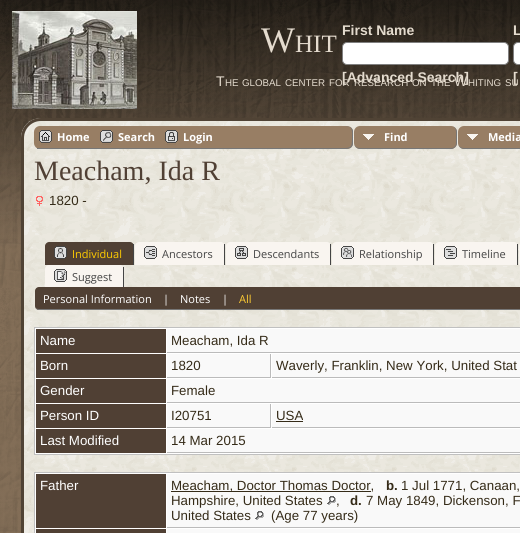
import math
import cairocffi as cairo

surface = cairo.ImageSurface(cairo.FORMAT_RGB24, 520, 533)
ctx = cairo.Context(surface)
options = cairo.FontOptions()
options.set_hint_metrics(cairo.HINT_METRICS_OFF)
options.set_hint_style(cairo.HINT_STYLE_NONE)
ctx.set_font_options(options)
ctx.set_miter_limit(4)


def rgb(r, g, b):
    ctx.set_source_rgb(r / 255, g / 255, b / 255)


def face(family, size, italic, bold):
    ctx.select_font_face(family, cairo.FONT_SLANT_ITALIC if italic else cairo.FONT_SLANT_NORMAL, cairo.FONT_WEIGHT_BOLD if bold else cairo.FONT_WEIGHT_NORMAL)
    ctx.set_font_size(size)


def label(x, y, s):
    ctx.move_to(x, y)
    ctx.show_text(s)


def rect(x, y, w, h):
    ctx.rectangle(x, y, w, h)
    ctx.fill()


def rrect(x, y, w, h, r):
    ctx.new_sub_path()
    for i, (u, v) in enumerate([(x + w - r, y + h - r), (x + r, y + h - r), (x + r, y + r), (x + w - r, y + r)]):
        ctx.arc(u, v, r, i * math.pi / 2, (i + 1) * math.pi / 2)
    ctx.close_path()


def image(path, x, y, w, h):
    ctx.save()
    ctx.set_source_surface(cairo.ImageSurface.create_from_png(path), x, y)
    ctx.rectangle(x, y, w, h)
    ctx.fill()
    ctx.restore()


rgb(255, 255, 255)
ctx.paint()
image('image0.png', 0, 0, 520, 533)
face('Liberation Sans', 14, 0, 1)
rgb(228, 219, 206)
label(342, 35, 'First Name')
label(513, 35, 'L')
rgb(255, 255, 255)
rrect(342.5, 42.5, 166, 22, 4.5)
ctx.fill_preserve()
rgb(128, 128, 128)
ctx.set_line_width(1)
ctx.stroke()
rgb(255, 255, 255)
rrect(513.5, 42.5, 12, 22, 4.5)
ctx.fill_preserve()
rgb(128, 128, 128)
ctx.stroke()
face('Liberation Sans', 9.75, 0, 0)
rgb(228, 219, 206)
label(329, 86, 'FOR')
label(354, 86, 'RESEARCH')
label(412, 86, 'ON')
label(431, 86, 'THE')
face('Liberation Sans', 14, 0, 0)
label(454, 86, 'W')
face('Liberation Sans', 14, 0, 1)
label(342, 82, '[Advanced Search]')
face('Liberation Sans', 9.75, 0, 0)
label(505, 86, 'SU')
face('Liberation Sans', 14, 0, 1)
label(513, 82, '[')
image('image1.png', 12, 11, 125, 98)
face('Liberation Serif', 36, 0, 0)
label(261, 52, 'W')
face('Liberation Serif', 25, 0, 0)
label(295, 52, 'HIT')
face('Liberation Sans', 14, 0, 0)
label(216, 86, 'T')
face('Liberation Sans', 9.75, 0, 0)
label(225, 86, 'HE')
label(242, 86, 'GLOBAL')
label(285, 86, 'CENTER')
label(468, 86, 'HITING')
image('image2.png', 21, 118, 499, 415)
rrect(22.5, 119.5, 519, 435, 18.5)
rgb(80, 67, 53)
ctx.set_line_width(3)
ctx.stroke()
rgb(152, 126, 100)
rrect(34, 126, 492, 23, 6)
ctx.fill()
rgb(119, 119, 119)
rect(37, 148, 305, 1)
image('image3.png', 39, 130, 13, 15)
face('Open Sans', 11, 0, 1)
rgb(255, 255, 255)
label(57, 141, 'Home')
image('image4.png', 100, 130, 13, 15)
label(118, 141, 'Search')
image('image5.png', 165, 130, 13, 15)
label(183, 141, 'Login')
image('image6.png', 347, 126, 117, 23)
rgb(152, 126, 100)
ctx.new_path()
ctx.move_to(342, 126)
ctx.line_to(347, 126)
ctx.curve_to(350.5, 126, 353, 128.5, 353, 132)
ctx.line_to(353, 143)
ctx.curve_to(353, 146.5, 350.5, 149, 347, 149)
ctx.line_to(342, 149)
ctx.close_path()
ctx.fill()
rgb(119, 119, 119)
ctx.set_fill_rule(cairo.FILL_RULE_EVEN_ODD)
ctx.new_path()
ctx.move_to(342, 126)
ctx.curve_to(346, 126, 352, 125.5, 353, 131)
ctx.line_to(353, 144)
ctx.curve_to(352, 149.5, 346, 149, 342, 149)
ctx.close_path()
ctx.move_to(342, 126)
ctx.line_to(348, 126)
ctx.curve_to(353, 127.5, 352, 134, 352, 137.5)
ctx.curve_to(352, 147.5, 351.5, 148, 342, 148)
ctx.close_path()
ctx.fill()
rgb(152, 126, 100)
rrect(354, 126, 103, 23, 6)
ctx.fill()
image('image7.png', 363, 134, 11, 6)
rgb(119, 119, 119)
ctx.new_path()
ctx.move_to(360, 126)
ctx.line_to(451, 126)
ctx.curve_to(454, 126, 457, 129, 457, 132)
ctx.line_to(457, 143)
ctx.curve_to(457, 146, 454, 149, 451, 149)
ctx.line_to(360, 149)
ctx.curve_to(357, 149, 354, 146, 354, 143)
ctx.line_to(354, 132)
ctx.curve_to(354, 129, 357, 126, 360, 126)
ctx.close_path()
ctx.move_to(360, 126)
ctx.line_to(451, 126)
ctx.curve_to(454, 126, 456, 129, 456, 132)
ctx.line_to(456, 143)
ctx.curve_to(456, 146, 454, 148, 451, 148)
ctx.line_to(360, 148)
ctx.curve_to(357, 148, 354, 146, 354, 143)
ctx.line_to(354, 132)
ctx.curve_to(354, 129, 357, 126, 360, 126)
ctx.close_path()
ctx.fill()
rgb(255, 255, 255)
label(384, 141, 'Find')
rgb(152, 126, 100)
rrect(458, 126, 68, 23, 6)
ctx.fill()
image('image7.png', 467, 134, 11, 6)
rgb(119, 119, 119)
ctx.new_path()
ctx.move_to(464, 126)
ctx.line_to(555, 126)
ctx.curve_to(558, 126, 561, 129, 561, 132)
ctx.line_to(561, 143)
ctx.curve_to(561, 146, 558, 149, 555, 149)
ctx.line_to(464, 149)
ctx.curve_to(461, 149, 458, 146, 458, 143)
ctx.line_to(458, 132)
ctx.curve_to(458, 129, 461, 126, 464, 126)
ctx.close_path()
ctx.move_to(464, 126)
ctx.line_to(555, 126)
ctx.curve_to(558, 126, 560, 129, 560, 132)
ctx.line_to(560, 143)
ctx.curve_to(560, 146, 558, 148, 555, 148)
ctx.line_to(464, 148)
ctx.curve_to(461, 148, 458, 146, 458, 143)
ctx.line_to(458, 132)
ctx.curve_to(458, 129, 461, 126, 464, 126)
ctx.close_path()
ctx.fill()
rgb(255, 255, 255)
label(488, 141, 'Media')
face('Liberation Serif', 28, 0, 0)
rgb(80, 64, 52)
label(34, 180, 'Meacham, Ida R')
image('image8.png', 36, 196, 7, 10)
face('Liberation Sans', 13.3, 0, 0)
rgb(53, 43, 24)
label(49, 205, '1820 -')
rgb(80, 64, 52)
ctx.new_path()
ctx.move_to(49, 242)
ctx.line_to(130, 242)
ctx.curve_to(132, 242, 134, 244, 134, 246)
ctx.line_to(134, 265)
ctx.line_to(45, 265)
ctx.line_to(45, 246)
ctx.curve_to(45, 244, 47, 242, 49, 242)
ctx.close_path()
ctx.fill()
rgb(68, 68, 68)
rect(133, 244, 1, 21)
image('image9.png', 54, 246, 13, 13)
face('Open Sans', 11, 0, 0)
rgb(255, 204, 0)
label(72, 258, 'Individual')
rgb(249, 245, 240)
ctx.new_path()
ctx.move_to(139, 242)
ctx.line_to(221, 242)
ctx.curve_to(223, 242, 225, 244, 225, 246)
ctx.line_to(225, 265)
ctx.line_to(135, 265)
ctx.line_to(135, 246)
ctx.curve_to(135, 244, 137, 242, 139, 242)
ctx.close_path()
ctx.fill()
rgb(68, 68, 68)
rect(224, 244, 1, 21)
image('image10.png', 144, 246, 13, 13)
label(162, 258, 'Ancestors')
rgb(249, 245, 240)
ctx.new_path()
ctx.move_to(230, 242)
ctx.line_to(327, 242)
ctx.curve_to(329, 242, 331, 244, 331, 246)
ctx.line_to(331, 265)
ctx.line_to(226, 265)
ctx.line_to(226, 246)
ctx.curve_to(226, 244, 228, 242, 230, 242)
ctx.close_path()
ctx.fill()
rgb(68, 68, 68)
rect(330, 244, 1, 21)
image('image11.png', 235, 246, 13, 13)
label(253, 258, 'Descendants')
rgb(249, 245, 240)
ctx.new_path()
ctx.move_to(336, 242)
ctx.line_to(430, 242)
ctx.curve_to(432, 242, 434, 244, 434, 246)
ctx.line_to(434, 265)
ctx.line_to(332, 265)
ctx.line_to(332, 246)
ctx.curve_to(332, 244, 334, 242, 336, 242)
ctx.close_path()
ctx.fill()
rgb(68, 68, 68)
rect(433, 244, 1, 21)
image('image12.png', 341, 246, 13, 13)
label(359, 258, 'Relationship')
rgb(249, 245, 240)
ctx.new_path()
ctx.move_to(439, 242)
ctx.line_to(514, 242)
ctx.curve_to(516, 242, 518, 244, 518, 246)
ctx.line_to(518, 265)
ctx.line_to(435, 265)
ctx.line_to(435, 246)
ctx.curve_to(435, 244, 437, 242, 439, 242)
ctx.close_path()
ctx.fill()
rgb(68, 68, 68)
rect(517, 244, 1, 21)
image('image13.png', 444, 246, 13, 13)
label(462, 258, 'Timeline')
rgb(249, 245, 240)
ctx.new_path()
ctx.move_to(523, 242)
ctx.line_to(520, 242)
ctx.curve_to(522, 242, 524, 244, 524, 246)
ctx.line_to(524, 265)
ctx.line_to(519, 265)
ctx.line_to(519, 246)
ctx.curve_to(519, 244, 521, 242, 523, 242)
ctx.close_path()
ctx.fill()
ctx.new_path()
ctx.move_to(49, 265)
ctx.line_to(120, 265)
ctx.curve_to(122, 265, 124, 267, 124, 269)
ctx.line_to(124, 287)
ctx.line_to(45, 287)
ctx.line_to(45, 269)
ctx.curve_to(45, 267, 47, 265, 49, 265)
ctx.close_path()
ctx.fill()
rgb(68, 68, 68)
rect(123, 267, 1, 20)
image('image14.png', 54, 269, 13, 13)
label(72, 281, 'Suggest')
rgb(80, 64, 52)
rrect(35, 287, 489, 23, 4)
ctx.fill()
rgb(119, 119, 119)
ctx.new_path()
ctx.move_to(39, 287)
ctx.line_to(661, 287)
ctx.curve_to(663, 287, 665, 289, 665, 291)
ctx.line_to(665, 306)
ctx.curve_to(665, 308, 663, 310, 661, 310)
ctx.line_to(39, 310)
ctx.curve_to(37, 310, 35, 308, 35, 306)
ctx.line_to(35, 291)
ctx.curve_to(35, 289, 37, 287, 39, 287)
ctx.close_path()
ctx.move_to(39, 287)
ctx.line_to(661, 287)
ctx.curve_to(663, 287, 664, 289, 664, 291)
ctx.line_to(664, 306)
ctx.curve_to(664, 308, 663, 309, 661, 309)
ctx.line_to(39, 309)
ctx.curve_to(37, 309, 35, 308, 35, 306)
ctx.line_to(35, 291)
ctx.curve_to(35, 289, 37, 287, 39, 287)
ctx.close_path()
ctx.fill()
rgb(255, 255, 255)
label(43, 303, 'Personal Information')
label(163, 303, '|')
label(180, 303, 'Notes')
label(222, 303, '|')
rgb(255, 204, 51)
label(239, 303, 'All')
rgb(255, 255, 255)
ctx.rectangle(34.5, 327.5, 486, 127)
ctx.fill_preserve()
rgb(192, 192, 192)
ctx.set_line_width(1)
ctx.stroke()
rgb(80, 64, 52)
rect(36, 329, 130, 24)
face('Liberation Sans', 13.3, 0, 0)
rgb(255, 255, 255)
label(40, 345, 'Name')
rgb(249, 249, 249)
rect(167, 329, 353, 23)
rgb(187, 187, 187)
rect(167, 352, 353, 1)
rgb(53, 43, 24)
label(171, 345, 'Meacham, Ida R')
rgb(80, 64, 52)
rect(36, 354, 130, 24)
rgb(255, 255, 255)
label(40, 370, 'Born')
rgb(249, 249, 249)
rect(167, 354, 103, 23)
rgb(187, 187, 187)
rect(270, 354, 1, 24)
rect(167, 377, 104, 1)
rgb(53, 43, 24)
label(171, 370, '1820')
rgb(249, 249, 249)
rect(272, 354, 248, 23)
rgb(187, 187, 187)
rect(272, 377, 248, 1)
rgb(53, 43, 24)
label(276, 370, 'Waverly, Franklin, New York, United Stat')
rgb(80, 64, 52)
rect(36, 379, 130, 24)
rgb(255, 255, 255)
label(40, 395, 'Gender')
rgb(249, 249, 249)
rect(167, 379, 353, 23)
rgb(187, 187, 187)
rect(167, 402, 353, 1)
rgb(53, 43, 24)
label(171, 395, 'Female')
rgb(80, 64, 52)
rect(36, 404, 130, 24)
rgb(255, 255, 255)
label(40, 420, 'Person ID')
rgb(249, 249, 249)
rect(167, 404, 103, 23)
rgb(187, 187, 187)
rect(270, 404, 1, 24)
rect(167, 427, 104, 1)
rgb(53, 43, 24)
label(171, 420, 'I20751')
rgb(249, 249, 249)
rect(272, 404, 248, 23)
rgb(187, 187, 187)
rect(272, 427, 248, 1)
rgb(53, 43, 24)
label(276, 420, 'USA')
rect(276, 421, 27, 1)
rgb(80, 64, 52)
rect(36, 429, 130, 24)
rgb(255, 255, 255)
label(40, 445, 'Last Modified')
rgb(249, 249, 249)
rect(167, 429, 353, 23)
rgb(187, 187, 187)
rect(167, 452, 353, 1)
rgb(53, 43, 24)
label(171, 445, '14 Mar 2015')
rgb(255, 255, 255)
ctx.rectangle(34.5, 472.5, 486, 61)
ctx.fill_preserve()
rgb(192, 192, 192)
ctx.stroke()
rgb(80, 64, 52)
rect(36, 474, 130, 54)
rgb(255, 255, 255)
label(40, 490, 'Father')
rgb(249, 249, 249)
rect(167, 474, 353, 53)
rgb(187, 187, 187)
rect(167, 527, 353, 1)
rgb(53, 43, 24)
rect(171, 491, 200, 1)
label(171, 490, 'Meacham, Doctor Thomas Doctor,')
face('Liberation Sans', 13.3, 0, 1)
label(386, 490, 'b.')
face('Liberation Sans', 13.3, 0, 0)
label(401, 490, '1 Jul 1771, Canaan,')
label(171, 505, 'Hampshire, United States')
image('image15.png', 327, 496, 9, 9)
label(336, 505, ',')
face('Liberation Sans', 13.3, 0, 1)
label(350, 505, 'd.')
face('Liberation Sans', 13.3, 0, 0)
label(366, 505, '7 May 1849, Dickenson, F')
label(171, 520, 'United States')
image('image15.png', 255, 511, 9, 9)
label(271, 520, '(Age 77 years)')
rgb(80, 64, 52)
rect(36, 529, 130, 4)
rgb(249, 249, 249)
rect(167, 529, 353, 4)
surface.write_to_png('render.png')
